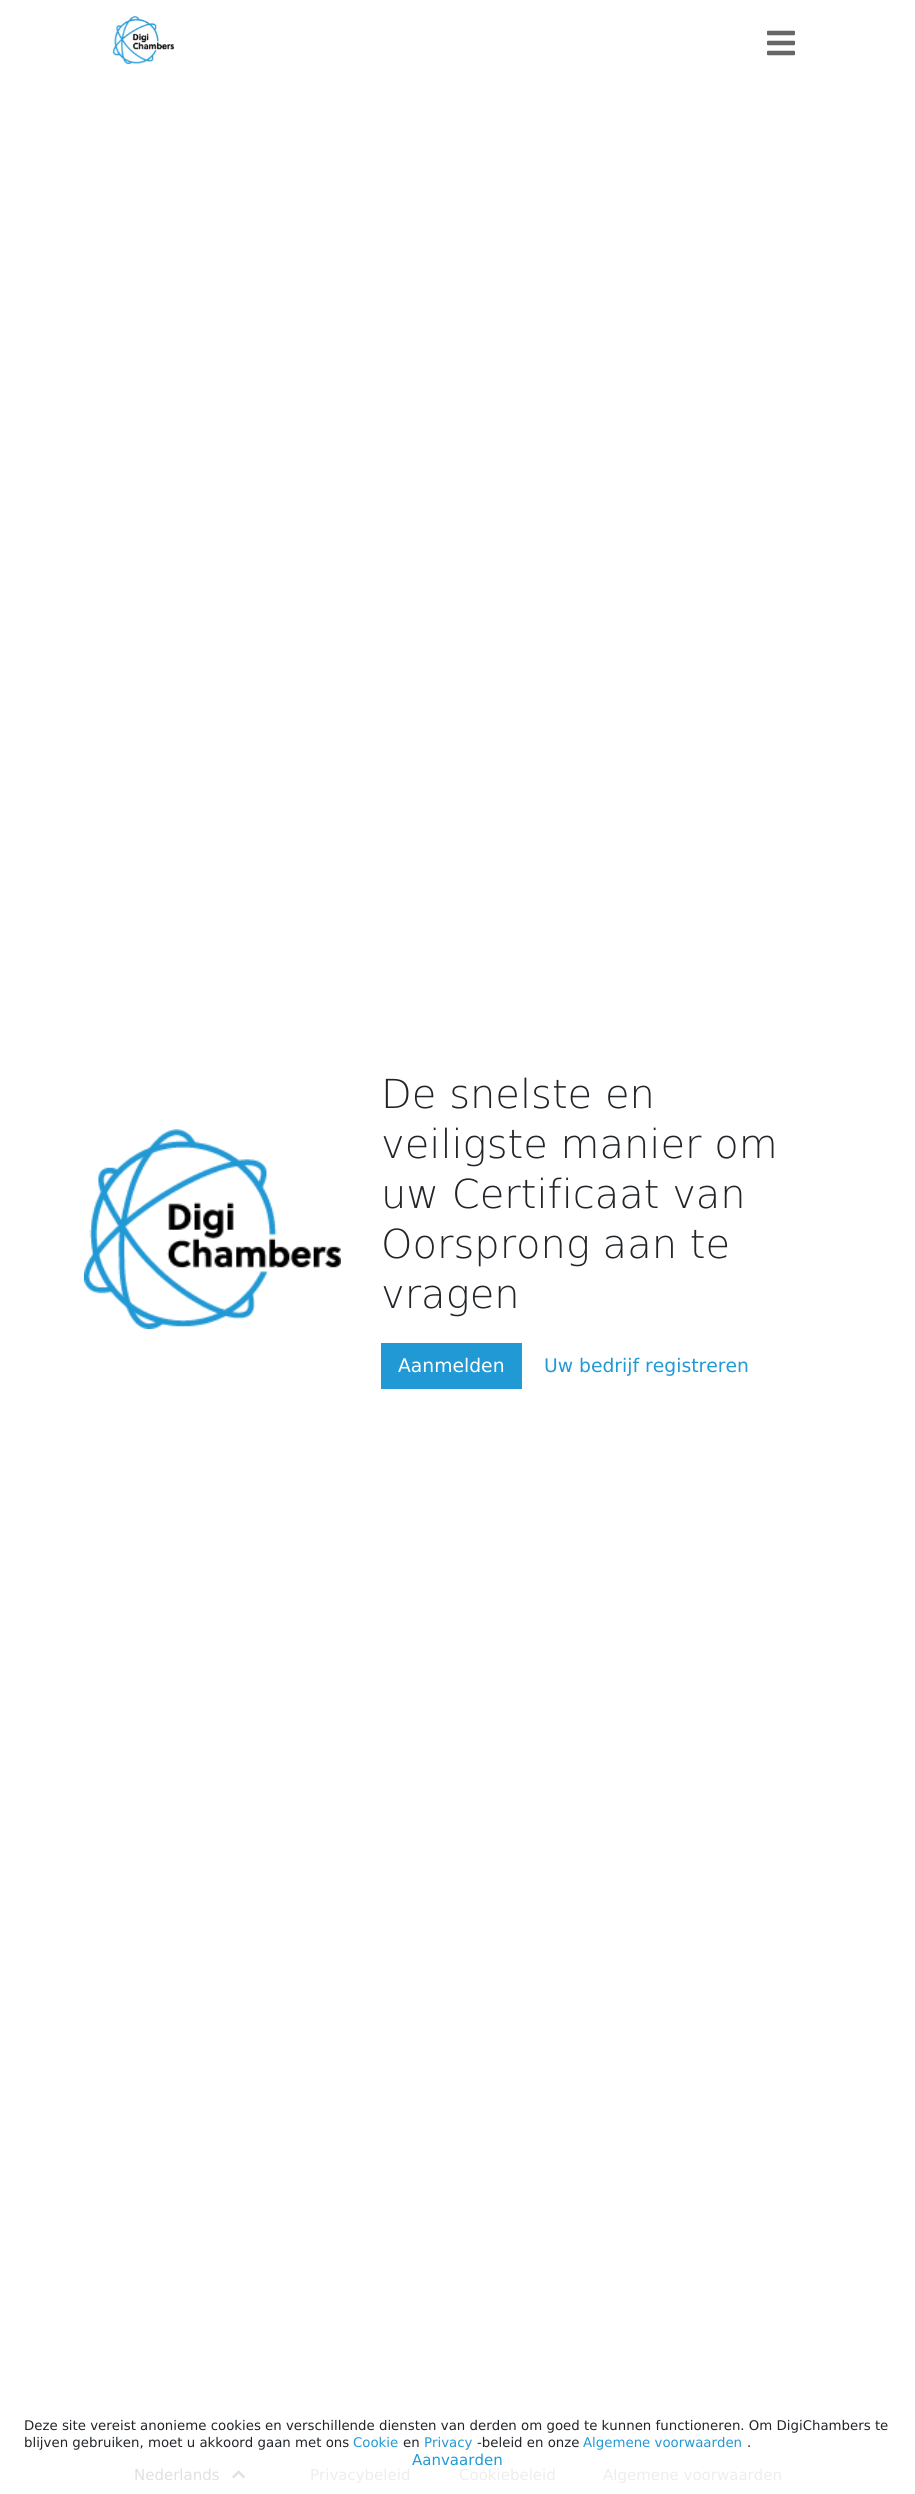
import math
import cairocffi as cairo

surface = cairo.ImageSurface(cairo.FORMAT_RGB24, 915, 2494)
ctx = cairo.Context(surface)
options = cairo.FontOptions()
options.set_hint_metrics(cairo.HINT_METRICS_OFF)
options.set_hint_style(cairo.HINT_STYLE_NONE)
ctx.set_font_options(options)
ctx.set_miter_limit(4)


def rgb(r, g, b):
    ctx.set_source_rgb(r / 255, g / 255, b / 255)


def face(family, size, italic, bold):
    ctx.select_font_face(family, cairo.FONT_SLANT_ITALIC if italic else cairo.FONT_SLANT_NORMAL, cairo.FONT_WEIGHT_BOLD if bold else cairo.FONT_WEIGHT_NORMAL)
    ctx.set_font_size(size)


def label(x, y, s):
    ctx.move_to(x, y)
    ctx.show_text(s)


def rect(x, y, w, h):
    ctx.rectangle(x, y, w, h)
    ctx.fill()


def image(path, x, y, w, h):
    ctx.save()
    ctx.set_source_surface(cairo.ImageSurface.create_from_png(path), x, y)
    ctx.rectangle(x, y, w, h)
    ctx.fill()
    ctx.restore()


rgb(255, 255, 255)
ctx.paint()
image('image0.png', 112, 16, 62, 48)
image('image1.png', 767, 30, 28, 26)
image('image2.png', 84, 1129, 257, 200)
face('DejaVu Sans ExtraLight', 40, 0, 0)
rgb(33, 37, 41)
label(381, 1108, 'De snelste en')
label(381, 1158, 'veiligste manier om')
label(381, 1208, 'uw Certificaat van')
label(381, 1258, 'Oorsprong aan te')
label(381, 1308, 'vragen')
rgb(33, 153, 213)
rect(381, 1343, 141, 46)
face('DejaVu Sans', 18.75, 0, 0)
rgb(255, 255, 255)
label(398, 1372, 'Aanmelden')
rgb(33, 153, 213)
label(544, 1372, 'Uw bedrijf registreren')
face('DejaVu Sans', 13.33, 0, 0)
rgb(33, 37, 41)
label(24, 2430, 'Deze site vereist anonieme cookies en verschillende diensten van derden om goed te kunnen functioneren. Om DigiChambers te')
label(24, 2447, 'blijven gebruiken, moet u akkoord gaan met ons')
rgb(33, 153, 213)
label(353, 2447, 'Cookie')
rgb(33, 37, 41)
label(403, 2447, 'en')
rgb(33, 153, 213)
label(424, 2447, 'Privacy')
rgb(33, 37, 41)
label(477, 2447, '-beleid en onze')
rgb(33, 153, 213)
label(583, 2447, 'Algemene voorwaarden')
rgb(33, 37, 41)
label(747, 2447, '.')
face('DejaVu Sans', 15, 0, 0)
rgb(33, 153, 213)
label(412, 2465, 'Aanvaarden')
rgb(224, 224, 224)
label(134, 2480, 'Nederlands')
image('image3.png', 232, 2470, 13, 9)
rgb(237, 237, 237)
label(310, 2480, 'Privacybeleid')
label(459, 2480, 'Cookiebeleid')
label(603, 2480, 'Algemene voorwaarden')
surface.write_to_png('render.png')
